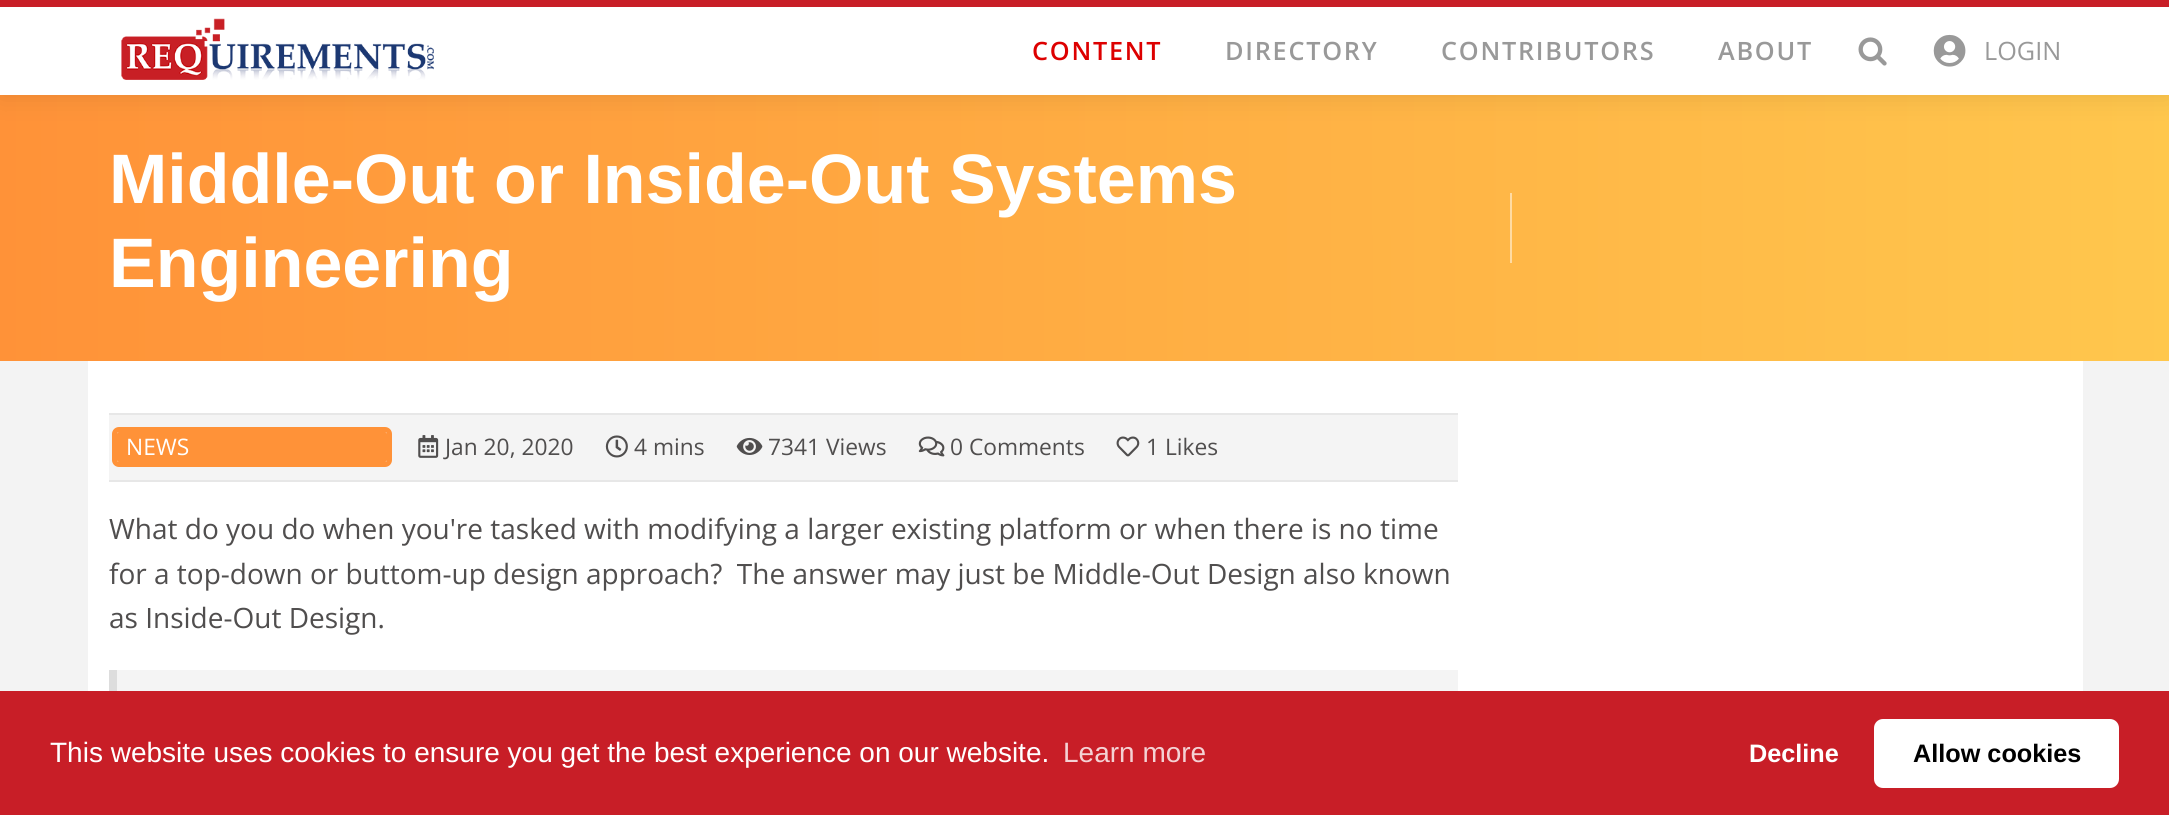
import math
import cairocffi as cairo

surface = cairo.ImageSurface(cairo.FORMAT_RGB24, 2169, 815)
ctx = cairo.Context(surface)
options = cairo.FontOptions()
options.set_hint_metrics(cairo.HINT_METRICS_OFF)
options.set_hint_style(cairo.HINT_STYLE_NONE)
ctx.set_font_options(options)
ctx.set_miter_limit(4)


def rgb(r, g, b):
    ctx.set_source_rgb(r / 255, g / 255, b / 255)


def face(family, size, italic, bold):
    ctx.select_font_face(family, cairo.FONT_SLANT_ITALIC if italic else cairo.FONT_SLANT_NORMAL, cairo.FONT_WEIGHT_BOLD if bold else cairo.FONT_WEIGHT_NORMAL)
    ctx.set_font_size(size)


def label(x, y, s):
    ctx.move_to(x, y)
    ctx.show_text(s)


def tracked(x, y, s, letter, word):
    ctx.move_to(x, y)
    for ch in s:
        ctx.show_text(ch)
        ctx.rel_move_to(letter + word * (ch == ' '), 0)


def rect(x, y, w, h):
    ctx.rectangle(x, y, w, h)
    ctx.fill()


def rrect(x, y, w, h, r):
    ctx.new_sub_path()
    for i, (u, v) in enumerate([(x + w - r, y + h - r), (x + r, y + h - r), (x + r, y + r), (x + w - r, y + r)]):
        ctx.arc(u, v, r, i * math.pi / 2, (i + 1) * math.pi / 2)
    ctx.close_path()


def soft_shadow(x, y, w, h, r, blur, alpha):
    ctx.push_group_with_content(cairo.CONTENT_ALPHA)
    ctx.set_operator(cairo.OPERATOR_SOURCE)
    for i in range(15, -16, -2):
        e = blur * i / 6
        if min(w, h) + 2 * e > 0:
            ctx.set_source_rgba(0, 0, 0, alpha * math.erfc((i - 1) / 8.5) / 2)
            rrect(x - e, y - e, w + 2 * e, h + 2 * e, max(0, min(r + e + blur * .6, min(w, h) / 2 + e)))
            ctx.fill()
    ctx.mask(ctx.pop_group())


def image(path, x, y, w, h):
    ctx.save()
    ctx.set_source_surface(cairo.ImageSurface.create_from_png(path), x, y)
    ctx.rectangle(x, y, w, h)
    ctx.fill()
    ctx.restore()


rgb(243, 243, 243)
ctx.paint()
gradient = cairo.LinearGradient(0, 228, 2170, 227)
gradient.add_color_stop_rgba(0, 1, 0.573, 0.22, 1)
gradient.add_color_stop_rgba(1, 1, 0.78, 0.302, 1)
ctx.set_source(gradient)
rect(0, 95, 2169, 266)
rgb(0, 0, 0)
soft_shadow(0, 0, 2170, 95, 0, 14, 0.1)
rgb(255, 255, 255)
rect(0, 7, 2169, 88)
rgb(200, 30, 39)
rect(0, 0, 2169, 7)
image('image0.png', 121, 18, 313, 62)
face('Open Sans SemiBold', 25.25, 0, 0)
rgb(221, 0, 0)
tracked(1032, 60, 'CONTENT', 1.75, 0)
rgb(153, 153, 153)
tracked(1225, 60, 'DIRECTORY', 1.75, 0)
tracked(1441, 60, 'CONTRIBUTORS', 1.75, 0)
tracked(1718, 60, 'ABOUT', 1.75, 0)
image('image1.png', 1858, 37, 29, 29)
image('image2.png', 1933, 34, 33, 33)
face('Open Sans', 25.25, 0, 0)
label(1984, 60, 'LOGIN')
face('Liberation Sans', 70, 0, 1)
rgb(255, 255, 255)
label(109, 203, 'Middle-Out or Inside-Out Systems')
label(109, 287, 'Engineering')
rgb(255, 219, 163)
rect(1510, 193, 2, 70)
rgb(255, 255, 255)
rect(88, 361, 1995, 330)
rgb(244, 244, 244)
rect(109, 415, 1349, 65)
rgb(231, 231, 231)
rect(109, 413, 1349, 2)
rect(109, 480, 1349, 2)
rrect(114.5, 429.5, 275, 35, 4.5)
rgb(255, 146, 56)
ctx.set_line_width(5)
ctx.stroke()
rrect(117, 432, 270, 30, 2)
ctx.fill()
face('Open Sans', 22.75, 0, 0)
rgb(255, 255, 255)
label(126, 455, 'NEWS')
image('image3.png', 418, 435, 21, 23)
rgb(80, 78, 78)
label(445, 455, 'Jan 20, 2020')
image('image4.png', 605, 435, 23, 23)
label(634, 455, '4 mins')
image('image5.png', 736, 437, 27, 18)
label(768, 455, '7341 Views')
image('image6.png', 918, 436, 27, 21)
label(950, 455, '0 Comments')
image('image7.png', 1116, 436, 24, 21)
label(1146, 455, '1 Likes')
face('Open Sans', 28, 0, 0)
label(109, 539, 'What do you do when you\'re tasked with modifying a larger existing platform or when there is no time')
label(109, 584, 'for a top-down or buttom-up design approach?  The answer may just be Middle-Out Design also known')
label(109, 628, 'as Inside-Out Design.')
rgb(244, 244, 244)
rect(117, 670, 1341, 21)
rgb(221, 221, 221)
rect(109, 670, 8, 21)
rgb(200, 30, 39)
rect(0, 691, 2169, 124)
face('Liberation Sans', 28, 0, 0)
rgb(255, 255, 255)
label(50, 762, 'This website uses cookies to ensure you get the best experience on our website.')
rgb(244, 210, 212)
label(1063, 762, 'Learn more')
face('Liberation Sans', 25.25, 0, 1)
rgb(255, 255, 255)
label(1749, 762, 'Decline')
rrect(1874, 719, 245, 69, 9)
ctx.fill()
rgb(0, 0, 0)
label(1913, 762, 'Allow cookies')
surface.write_to_png('render.png')
